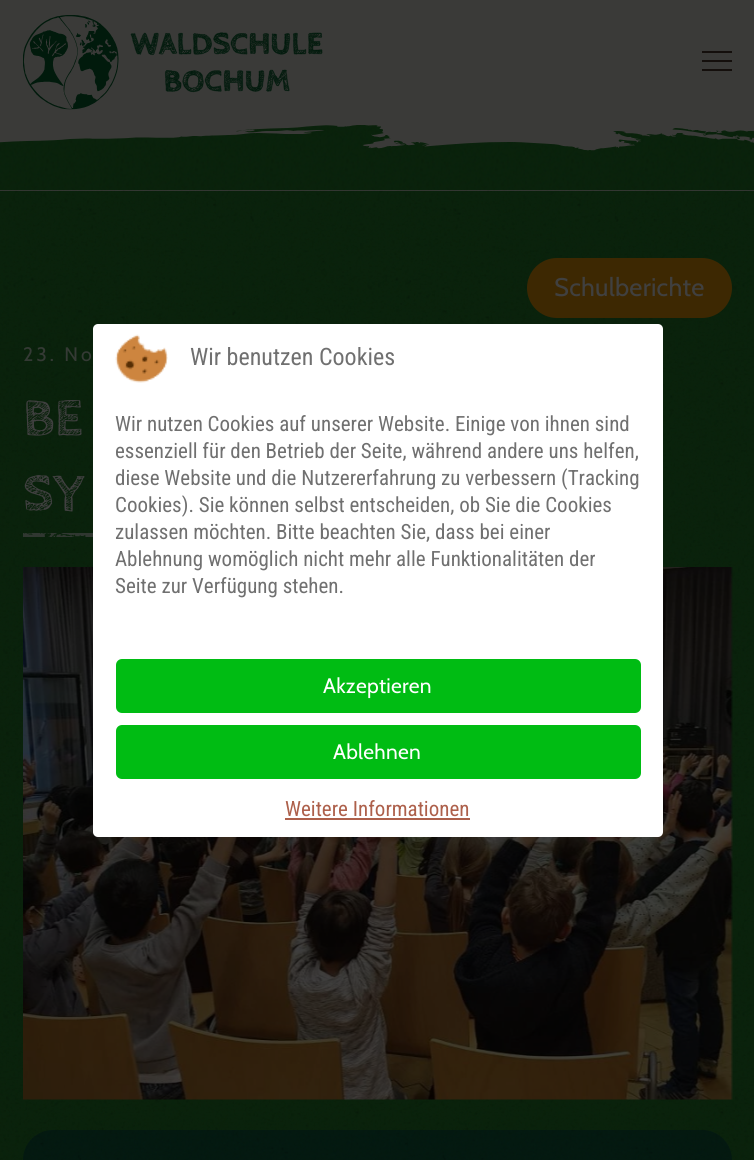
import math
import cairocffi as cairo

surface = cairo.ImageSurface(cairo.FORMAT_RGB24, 754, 1160)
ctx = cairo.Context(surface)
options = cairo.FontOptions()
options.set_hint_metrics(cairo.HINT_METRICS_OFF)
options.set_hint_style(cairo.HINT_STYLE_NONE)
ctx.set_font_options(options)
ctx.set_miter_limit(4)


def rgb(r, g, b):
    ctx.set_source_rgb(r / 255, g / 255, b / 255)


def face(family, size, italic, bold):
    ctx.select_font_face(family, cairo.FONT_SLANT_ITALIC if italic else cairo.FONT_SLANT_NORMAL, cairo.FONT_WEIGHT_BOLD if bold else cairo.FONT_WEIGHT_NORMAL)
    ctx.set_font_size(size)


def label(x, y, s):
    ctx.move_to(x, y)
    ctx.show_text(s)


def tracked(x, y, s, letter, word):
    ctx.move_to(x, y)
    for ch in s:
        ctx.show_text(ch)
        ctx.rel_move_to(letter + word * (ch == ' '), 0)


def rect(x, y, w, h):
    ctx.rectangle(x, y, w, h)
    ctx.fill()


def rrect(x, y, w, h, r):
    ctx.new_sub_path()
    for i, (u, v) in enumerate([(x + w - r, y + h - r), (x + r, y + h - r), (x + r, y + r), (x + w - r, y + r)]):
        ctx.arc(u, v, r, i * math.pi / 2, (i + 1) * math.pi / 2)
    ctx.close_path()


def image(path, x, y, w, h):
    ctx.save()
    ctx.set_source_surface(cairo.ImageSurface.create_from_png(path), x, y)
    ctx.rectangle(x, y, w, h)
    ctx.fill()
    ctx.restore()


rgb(58, 58, 56)
ctx.paint()
image('image0.png', 23, 15, 300, 95)
rgb(20, 15, 12)
rect(702, 51, 30, 2)
rect(702, 60, 30, 2)
rect(702, 69, 30, 2)
rgb(9, 34, 11)
rect(0, 191, 754, 969)
image('image1.png', 0, 190, 754, 970)
image('image2.png', 0, 125, 754, 66)
rgb(61, 40, 2)
rrect(527, 258, 205, 60, 30)
ctx.fill()
face('Cabin', 25.5, 0, 0)
rgb(64, 64, 64)
tracked(554, 296, 'Schulberichte', 0.25, 0)
face('Cabin', 19.5, 0, 0)
rgb(53, 58, 53)
tracked(23, 361, '23. No', 3, 0)
face('Cabin Sketch', 54, 0, 1)
rgb(64, 64, 64)
label(23, 435, 'BE')
label(23, 510, 'SY')
image('image3.png', 23, 533, 70, 4)
image('image4.png', 23, 567, 710, 533)
rgb(3, 25, 16)
rrect(23, 1130, 709, 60, 30)
ctx.fill()
image('image5.png', 24, 1129, 707, 31)
rgb(255, 255, 255)
rrect(93, 324, 570, 513, 5)
ctx.fill()
image('image6.png', 115, 334, 53, 49)
face('Roboto Condensed', 24, 0, 0)
rgb(112, 112, 112)
label(190, 365, 'Wir benutzen Cookies')
face('Roboto Condensed', 21, 0, 0)
label(115, 431, 'Wir nutzen Cookies auf unserer Website. Einige von ihnen sind')
label(115, 458, 'essenziell für den Betrieb der Seite, während andere uns helfen,')
label(115, 485, 'diese Website und die Nutzererfahrung zu verbessern (Tracking')
label(115, 512, 'Cookies). Sie können selbst entscheiden, ob Sie die Cookies')
label(115, 539, 'zulassen möchten. Bitte beachten Sie, dass bei einer')
label(115, 566, 'Ablehnung womöglich nicht mehr alle Funktionalitäten der')
label(115, 593, 'Seite zur Verfügung stehen.')
rgb(0, 188, 19)
rrect(116, 659, 525, 54, 6)
ctx.fill()
face('Cabin', 21, 0, 0)
rgb(255, 255, 255)
tracked(323, 693, 'Akzeptieren', 0.25, 0)
rgb(0, 188, 19)
rrect(116, 725, 525, 54, 6)
ctx.fill()
rgb(255, 255, 255)
tracked(333, 759, 'Ablehnen', 0.25, 0)
face('Roboto Condensed', 21, 0, 0)
rgb(173, 96, 75)
label(285, 816, 'Weitere Informationen')
rect(285, 818, 185, 2)
surface.write_to_png('render.png')
